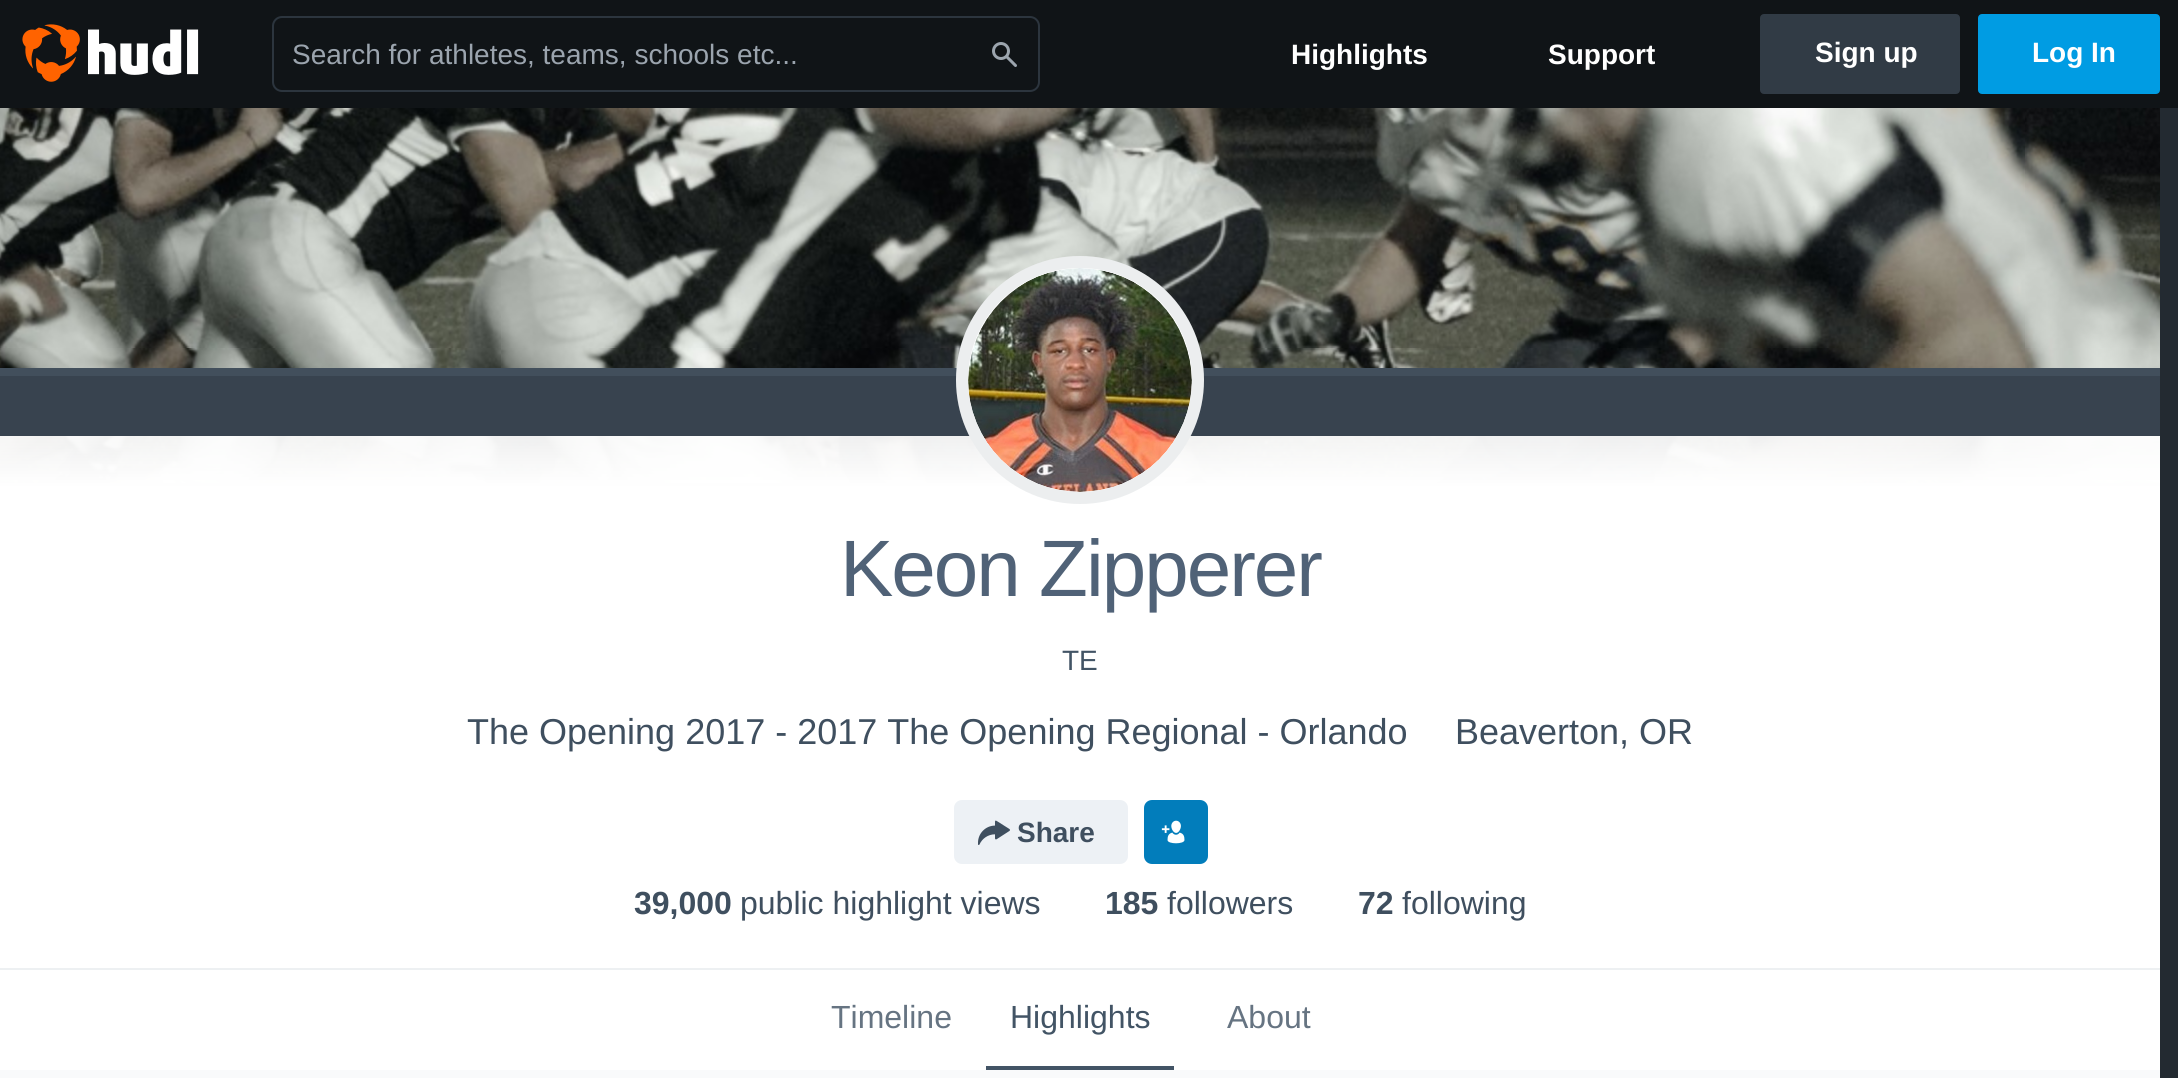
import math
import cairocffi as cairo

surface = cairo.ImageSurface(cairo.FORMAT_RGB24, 2178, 1078)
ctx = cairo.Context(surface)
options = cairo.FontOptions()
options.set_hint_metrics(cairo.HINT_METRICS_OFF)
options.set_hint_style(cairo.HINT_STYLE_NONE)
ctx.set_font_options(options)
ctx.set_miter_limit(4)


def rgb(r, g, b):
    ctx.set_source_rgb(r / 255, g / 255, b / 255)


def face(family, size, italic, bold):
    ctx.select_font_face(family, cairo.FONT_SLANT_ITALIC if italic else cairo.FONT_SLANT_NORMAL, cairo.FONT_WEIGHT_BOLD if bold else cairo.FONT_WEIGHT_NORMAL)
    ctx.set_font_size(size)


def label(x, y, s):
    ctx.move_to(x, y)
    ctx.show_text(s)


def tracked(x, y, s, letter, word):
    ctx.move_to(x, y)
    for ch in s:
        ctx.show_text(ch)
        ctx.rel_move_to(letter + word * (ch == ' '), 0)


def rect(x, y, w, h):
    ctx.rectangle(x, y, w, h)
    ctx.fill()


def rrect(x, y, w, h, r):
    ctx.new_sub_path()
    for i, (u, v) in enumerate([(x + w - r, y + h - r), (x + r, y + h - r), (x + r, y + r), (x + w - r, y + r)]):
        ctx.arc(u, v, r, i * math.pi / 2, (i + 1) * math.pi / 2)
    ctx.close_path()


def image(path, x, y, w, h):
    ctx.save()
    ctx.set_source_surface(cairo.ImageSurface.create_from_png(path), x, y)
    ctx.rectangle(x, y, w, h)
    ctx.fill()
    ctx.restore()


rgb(35, 42, 49)
ctx.paint()
rgb(16, 20, 23)
rect(0, 0, 2178, 108)
image('image0.png', 22, 24, 177, 58)
rrect(273, 17, 766, 74, 9)
rgb(44, 53, 62)
ctx.stroke()
face('Liberation Sans', 28, 0, 0)
rgb(155, 164, 174)
label(292, 64, 'Search for athletes, teams, schools etc...')
image('image1.png', 992, 42, 25, 25)
face('Liberation Sans', 28, 0, 1)
rgb(255, 255, 255)
label(1291, 64, 'Highlights')
label(1548, 64, 'Support')
rgb(49, 59, 69)
rrect(1763, 17, 194, 74, 1)
ctx.fill_preserve()
ctx.set_line_width(6)
ctx.stroke()
rgb(255, 255, 255)
label(1815, 62, 'Sign up')
rgb(0, 156, 227)
rrect(1981, 17, 176, 74, 1)
ctx.fill_preserve()
ctx.stroke()
rgb(255, 255, 255)
label(2032, 62, 'Log In')
image('image2.png', 0, 108, 2160, 375)
gradient = cairo.LinearGradient(1080, 368, 1080, 968)
gradient.add_color_stop_rgba(0, 1, 1, 1, 0.85)
gradient.add_color_stop_rgba(0.2, 1, 1, 1, 1)
ctx.set_source(gradient)
rect(0, 436, 2160, 532)
rgb(237, 240, 242)
rect(0, 968, 2160, 2)
rgb(66, 79, 92)
rect(0, 368, 2160, 8)
rgb(56, 67, 79)
rect(0, 376, 2160, 60)
rgb(255, 255, 255)
ctx.arc(1080, 380, 124, 0, 2 * math.pi)
ctx.fill()
ctx.arc(1080, 380, 118, 0, 2 * math.pi)
ctx.set_source_rgba(0.271, 0.322, 0.369, 0.1)
ctx.set_line_width(12)
ctx.stroke()
image('image3.png', 968, 268, 224, 224)
face('Liberation Sans', 80, 0, 0)
rgb(80, 98, 119)
tracked(840, 596, 'Keon Zipperer', -2, 0)
face('Liberation Sans', 28, 0, 0)
rgb(66, 84, 101)
label(1062, 670, 'TE')
face('Liberation Sans', 36, 0, 0)
rgb(63, 79, 95)
label(467, 744, 'The Opening 2017 - 2017 The Opening Regional - Orlando')
label(1455, 744, 'Beaverton, OR')
rgb(237, 241, 245)
rrect(954, 800, 174, 64, 8)
ctx.fill()
image('image4.png', 978, 820, 32, 25)
face('Liberation Sans', 28, 0, 1)
rgb(63, 79, 95)
label(1017, 842, 'Share')
rgb(2, 125, 187)
rrect(1144, 800, 64, 64, 8)
ctx.fill()
image('image5.png', 1161, 820, 24, 24)
face('Liberation Sans', 32, 0, 1)
rgb(63, 79, 95)
label(634, 914, '39,000')
face('Liberation Sans', 32, 0, 0)
label(740, 914, 'public highlight views')
face('Liberation Sans', 32, 0, 1)
label(1105, 914, '185')
face('Liberation Sans', 32, 0, 0)
label(1167, 914, 'followers')
face('Liberation Sans', 32, 0, 1)
label(1358, 914, '72')
face('Liberation Sans', 32, 0, 0)
label(1402, 914, 'following')
rgb(255, 255, 255)
rect(0, 970, 2160, 100)
rgb(102, 116, 130)
label(831, 1028, 'Timeline')
rgb(66, 84, 101)
rect(986, 1066, 188, 4)
label(1010, 1028, 'Highlights')
rgb(102, 116, 130)
label(1227, 1028, 'About')
rgb(249, 250, 251)
rect(0, 1070, 2160, 8)
surface.write_to_png('render.png')
